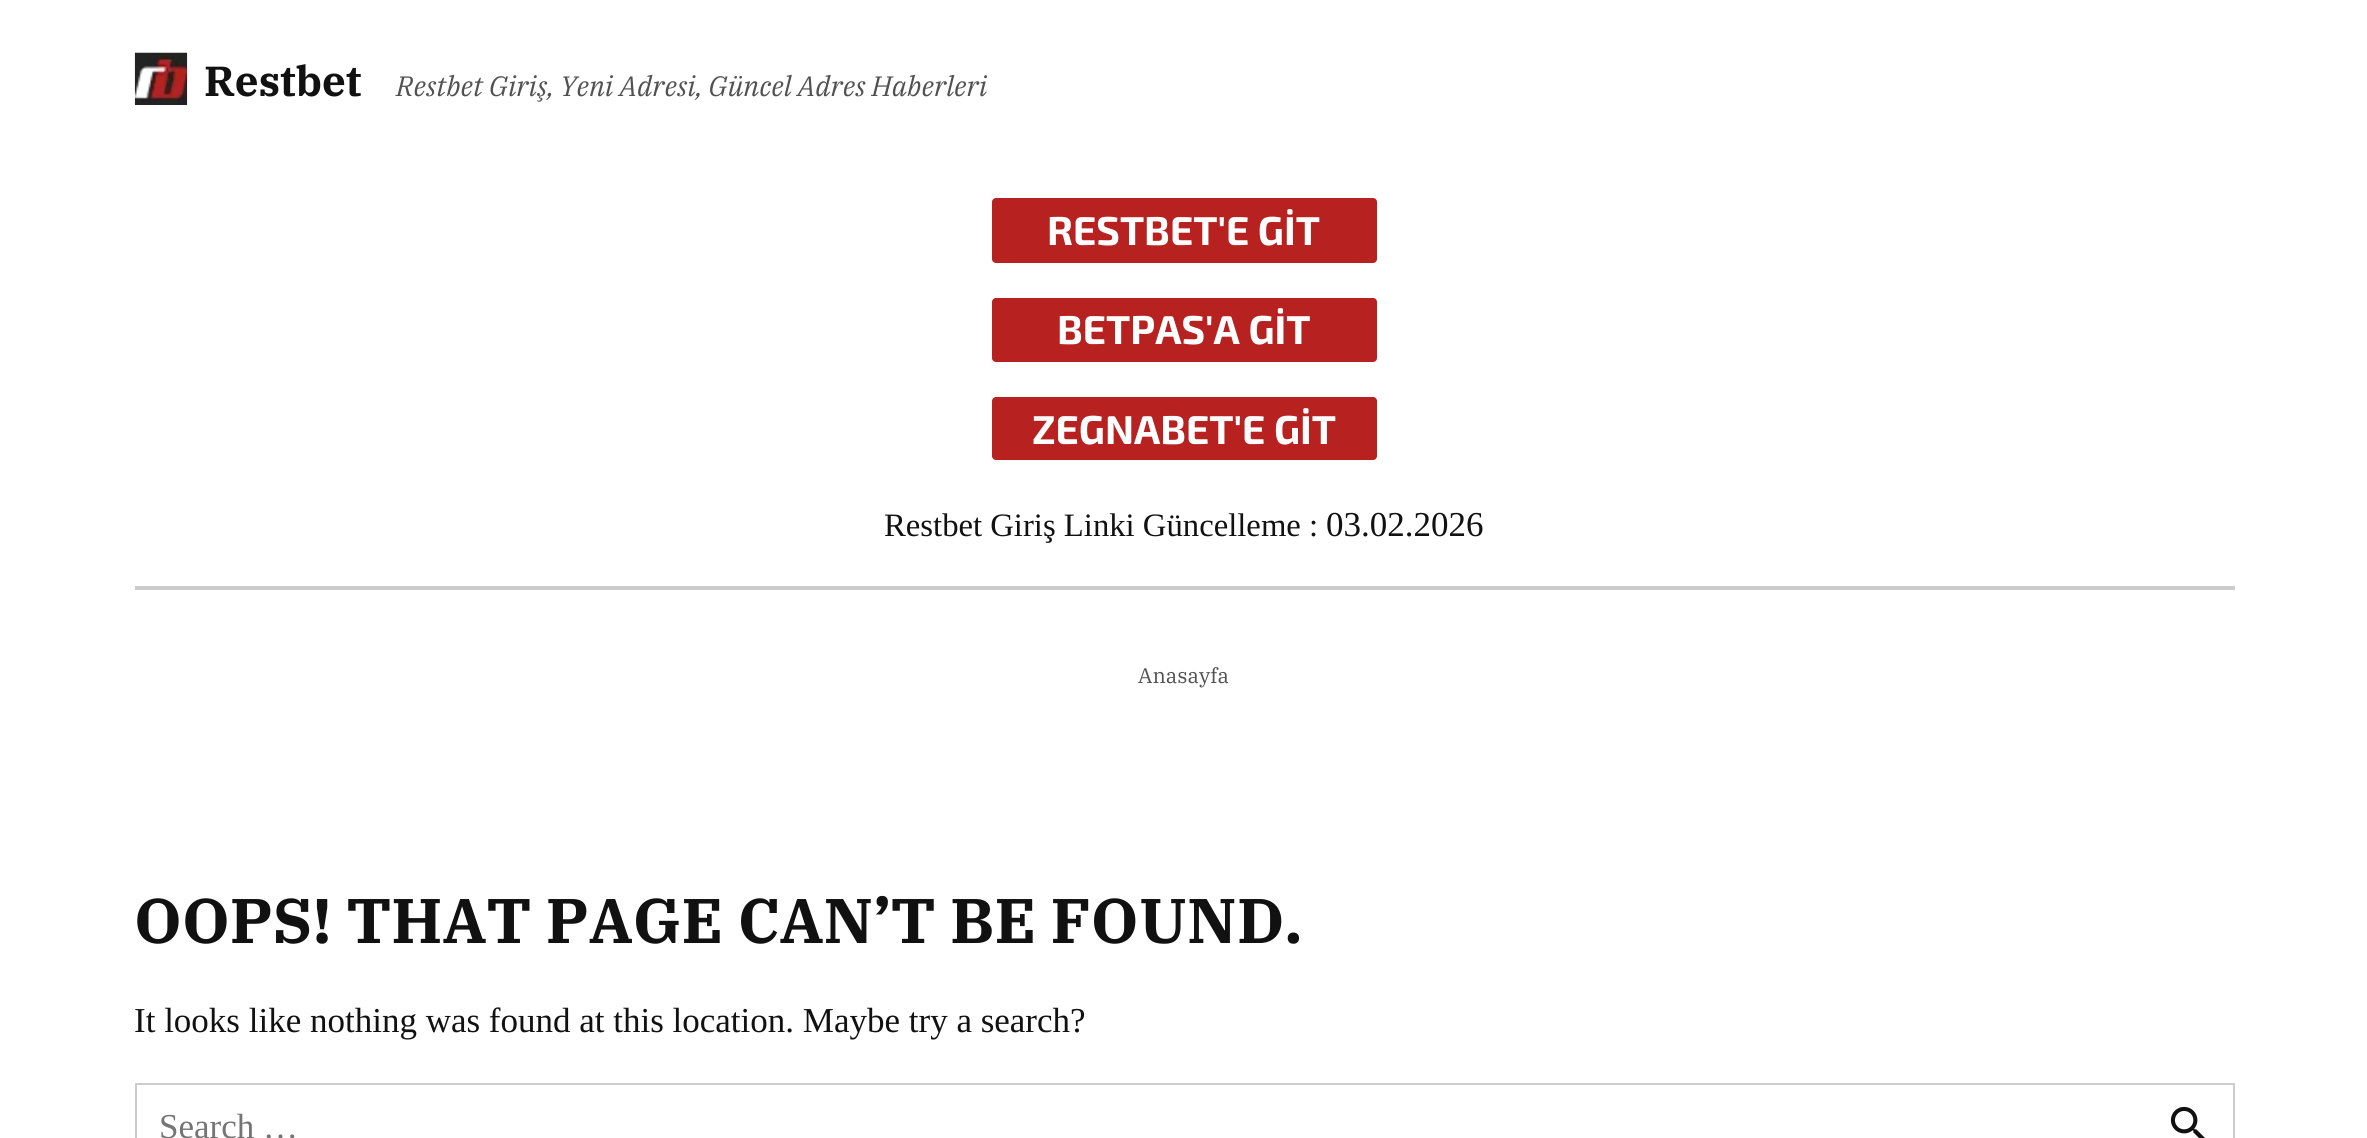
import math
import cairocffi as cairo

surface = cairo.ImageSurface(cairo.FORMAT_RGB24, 2367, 1138)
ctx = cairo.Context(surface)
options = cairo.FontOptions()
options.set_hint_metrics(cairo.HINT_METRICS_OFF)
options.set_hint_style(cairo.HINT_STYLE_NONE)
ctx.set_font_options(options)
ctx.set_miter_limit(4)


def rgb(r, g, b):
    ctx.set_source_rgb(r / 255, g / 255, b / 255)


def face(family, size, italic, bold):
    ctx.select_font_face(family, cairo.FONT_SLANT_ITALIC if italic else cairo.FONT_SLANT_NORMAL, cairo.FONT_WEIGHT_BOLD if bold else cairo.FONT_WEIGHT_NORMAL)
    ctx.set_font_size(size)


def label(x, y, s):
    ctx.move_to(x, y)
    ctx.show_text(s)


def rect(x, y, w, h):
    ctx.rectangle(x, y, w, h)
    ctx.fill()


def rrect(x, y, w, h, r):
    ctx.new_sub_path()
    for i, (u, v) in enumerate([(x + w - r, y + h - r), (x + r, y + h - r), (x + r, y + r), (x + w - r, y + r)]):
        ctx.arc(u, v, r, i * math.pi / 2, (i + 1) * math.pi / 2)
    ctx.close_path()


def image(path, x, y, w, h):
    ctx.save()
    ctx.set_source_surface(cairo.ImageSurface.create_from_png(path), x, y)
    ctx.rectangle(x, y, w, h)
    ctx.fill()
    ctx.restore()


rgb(255, 255, 255)
ctx.paint()
image('image0.png', 134, 52, 54, 53)
face('IBM Plex Serif', 42, 0, 1)
rgb(17, 17, 17)
label(204, 96, 'Restbet')
face('IBM Plex Serif', 28, 1, 0)
rgb(81, 81, 81)
label(396, 96, 'Restbet Giriş, Yeni Adresi, Güncel Adres Haberleri')
rgb(183, 34, 33)
rrect(992, 198, 385, 65, 4)
ctx.fill()
face('Exo 2', 40.25, 0, 1)
rgb(255, 255, 255)
label(1047, 245, 'RESTBET\'E GİT')
rgb(183, 34, 33)
rrect(992, 298, 385, 64, 4)
ctx.fill()
rgb(255, 255, 255)
label(1057, 344, 'BETPAS\'A GİT')
rgb(183, 34, 33)
rrect(992, 397, 385, 63, 4)
ctx.fill()
rgb(255, 255, 255)
label(1032, 444, 'ZEGNABET\'E GİT')
face('Liberation Serif', 32.7, 0, 0)
rgb(17, 17, 17)
label(884, 536, 'Restbet Giriş Linki Güncelleme :')
face('Liberation Serif', 35, 0, 0)
label(1326, 536, '03.02.2026')
rgb(204, 204, 204)
rect(135, 586, 2100, 4)
face('IBM Plex Serif', 21, 0, 0)
rgb(81, 81, 81)
label(1138, 683, 'Anasayfa')
face('IBM Plex Serif', 63, 0, 1)
rgb(17, 17, 17)
label(134, 943, 'OOPS! THAT PAGE CAN’T BE FOUND.')
face('Liberation Serif', 35, 0, 0)
label(134, 1032, 'It looks like nothing was found at this location. Maybe try a search?')
ctx.rectangle(136, 1084, 2098, 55)
rgb(204, 204, 204)
ctx.stroke()
rgb(117, 117, 117)
label(159, 1138, 'Search …')
image('image1.png', 2170, 1106, 35, 32)
surface.write_to_png('render.png')
